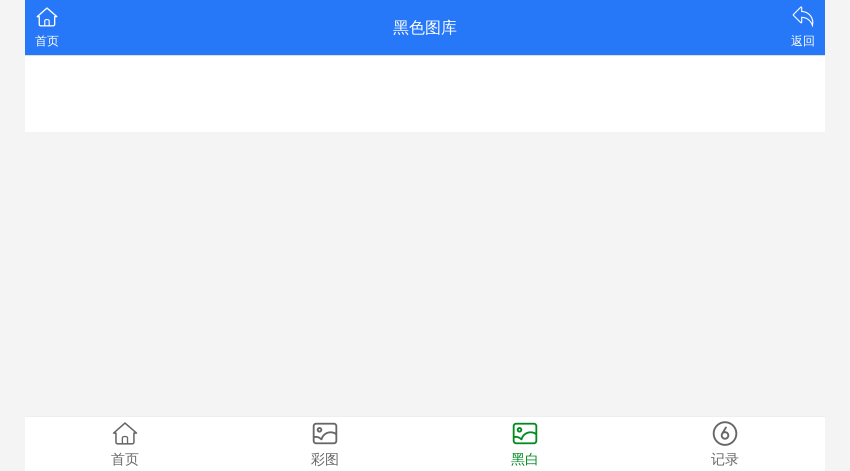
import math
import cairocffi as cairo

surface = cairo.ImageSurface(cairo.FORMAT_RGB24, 850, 471)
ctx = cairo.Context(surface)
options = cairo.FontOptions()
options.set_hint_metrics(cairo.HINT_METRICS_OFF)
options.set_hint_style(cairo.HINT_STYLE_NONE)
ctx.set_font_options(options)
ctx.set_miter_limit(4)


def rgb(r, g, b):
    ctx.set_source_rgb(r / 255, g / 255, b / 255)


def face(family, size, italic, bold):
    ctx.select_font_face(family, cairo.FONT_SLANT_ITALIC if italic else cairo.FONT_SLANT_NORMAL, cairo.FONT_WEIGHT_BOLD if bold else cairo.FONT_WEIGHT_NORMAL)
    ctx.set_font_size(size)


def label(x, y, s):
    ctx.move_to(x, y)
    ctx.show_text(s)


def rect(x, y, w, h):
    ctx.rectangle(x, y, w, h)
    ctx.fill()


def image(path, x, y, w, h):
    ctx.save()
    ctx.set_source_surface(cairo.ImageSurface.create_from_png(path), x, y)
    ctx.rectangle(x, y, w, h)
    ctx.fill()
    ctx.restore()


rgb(244, 244, 245)
ctx.paint()
rgb(255, 255, 255)
rect(25, 56, 800, 76)
rgb(39, 120, 249)
rect(25, 0, 800, 55)
face('WenQuanYi Zen Hei Medium', 16, 0, 0)
rgb(255, 255, 255)
label(393, 33, '黑色图库')
image('image0.png', 36, 7, 22, 20)
face('WenQuanYi Zen Hei Medium', 12, 0, 0)
label(35, 45, '首页')
image('image1.png', 792, 6, 22, 22)
label(791, 45, '返回')
rgb(221, 221, 221)
rect(25, 55, 800, 1)
rgb(255, 255, 255)
rect(25, 417, 800, 54)
rgb(238, 238, 238)
rect(25, 416, 800, 1)
image('image2.png', 112, 422, 26, 23)
face('WenQuanYi Zen Hei Medium', 14, 0, 0)
rgb(102, 102, 102)
label(111, 464, '首页')
image('image3.png', 312, 422, 26, 23)
label(311, 464, '彩图')
image('image4.png', 512, 422, 26, 23)
rgb(2, 138, 31)
label(511, 464, '黑白')
image('image5.png', 712, 421, 26, 25)
rgb(102, 102, 102)
label(711, 464, '记录')
surface.write_to_png('render.png')
